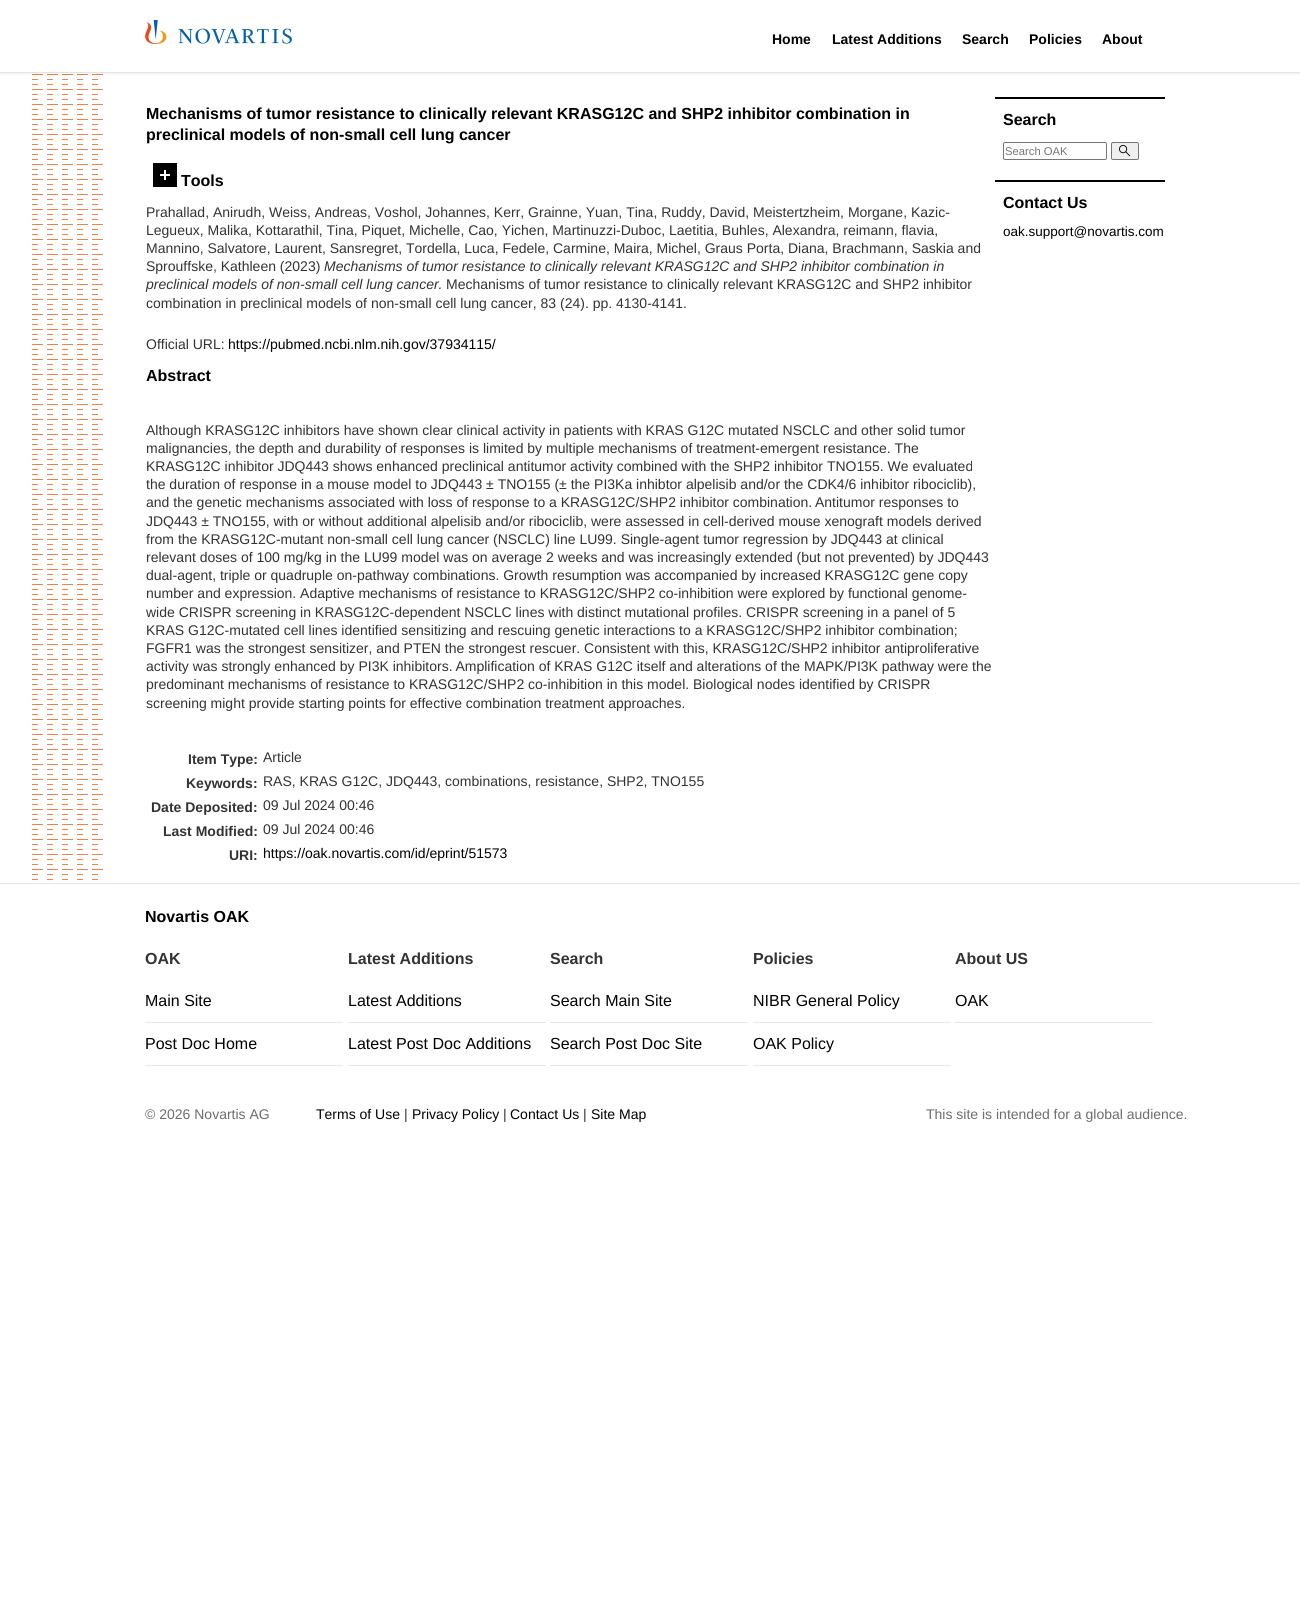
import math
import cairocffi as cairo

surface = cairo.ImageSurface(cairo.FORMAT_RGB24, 1300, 1603)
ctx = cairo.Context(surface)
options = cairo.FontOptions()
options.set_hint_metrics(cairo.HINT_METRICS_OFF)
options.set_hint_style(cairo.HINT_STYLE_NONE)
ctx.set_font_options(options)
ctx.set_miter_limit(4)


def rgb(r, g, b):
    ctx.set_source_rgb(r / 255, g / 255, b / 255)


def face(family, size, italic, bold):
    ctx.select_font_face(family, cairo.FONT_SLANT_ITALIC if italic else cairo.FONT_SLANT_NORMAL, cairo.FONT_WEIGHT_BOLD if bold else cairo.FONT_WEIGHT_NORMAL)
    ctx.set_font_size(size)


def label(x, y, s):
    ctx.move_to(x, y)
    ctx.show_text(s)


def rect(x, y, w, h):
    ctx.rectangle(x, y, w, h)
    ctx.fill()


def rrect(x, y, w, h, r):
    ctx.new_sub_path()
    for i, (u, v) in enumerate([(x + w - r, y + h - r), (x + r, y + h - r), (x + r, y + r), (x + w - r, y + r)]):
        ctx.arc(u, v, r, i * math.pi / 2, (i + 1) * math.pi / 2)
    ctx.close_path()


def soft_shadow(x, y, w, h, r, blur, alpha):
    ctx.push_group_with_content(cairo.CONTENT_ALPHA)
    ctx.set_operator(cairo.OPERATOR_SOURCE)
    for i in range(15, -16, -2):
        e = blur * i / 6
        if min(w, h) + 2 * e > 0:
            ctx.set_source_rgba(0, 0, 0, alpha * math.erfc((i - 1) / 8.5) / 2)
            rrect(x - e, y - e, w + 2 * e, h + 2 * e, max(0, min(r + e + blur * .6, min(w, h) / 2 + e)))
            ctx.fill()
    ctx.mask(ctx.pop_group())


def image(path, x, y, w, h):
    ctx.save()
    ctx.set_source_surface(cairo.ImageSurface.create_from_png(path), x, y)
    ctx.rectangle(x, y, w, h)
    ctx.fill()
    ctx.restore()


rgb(255, 255, 255)
ctx.paint()
rgb(237, 237, 237)
rect(0, 72, 1300, 1)
image('image1.png', 32, 74, 71, 806)
ctx.save()
ctx.rectangle(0, 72, 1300, 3)
ctx.clip()
rgb(0, 0, 0)
soft_shadow(0, 0, 1300, 72, 0, 4, 0.1)
ctx.restore()
image('image0.png', 145, 20, 147, 24)
face('Liberation Sans', 14, 0, 1)
rgb(0, 0, 0)
label(772, 44, 'Home')
label(832, 44, 'Latest Additions')
label(962, 44, 'Search')
label(1029, 44, 'Policies')
label(1102, 44, 'About')
face('Liberation Sans', 16, 0, 1)
label(146, 119, 'Mechanisms of tumor resistance to clinically relevant KRASG12C and SHP2 inhibitor combination in')
label(146, 140, 'preclinical models of non-small cell lung cancer')
image('image2.png', 153, 163, 24, 24)
label(181, 186, 'Tools')
face('Liberation Sans', 14, 0, 0)
rgb(51, 51, 51)
label(146, 217, 'Prahallad, Anirudh, Weiss, Andreas, Voshol, Johannes, Kerr, Grainne, Yuan, Tina, Ruddy, David, Meistertzheim, Morgane, Kazic-')
label(146, 235, 'Legueux, Malika, Kottarathil, Tina, Piquet, Michelle, Cao, Yichen, Martinuzzi-Duboc, Laetitia, Buhles, Alexandra, reimann, flavia,')
label(146, 253, 'Mannino, Salvatore, Laurent, Sansregret, Tordella, Luca, Fedele, Carmine, Maira, Michel, Graus Porta, Diana, Brachmann, Saskia and')
label(146, 271, 'Sprouffske, Kathleen (2023)')
face('Liberation Sans', 14, 1, 0)
label(324, 271, 'Mechanisms of tumor resistance to clinically relevant KRASG12C and SHP2 inhibitor combination in')
label(146, 289, 'preclinical models of non-small cell lung cancer.')
face('Liberation Sans', 14, 0, 0)
label(446, 289, 'Mechanisms of tumor resistance to clinically relevant KRASG12C and SHP2 inhibitor')
label(146, 308, 'combination in preclinical models of non-small cell lung cancer, 83 (24). pp. 4130-4141.')
label(146, 349, 'Official URL:')
rgb(0, 0, 0)
label(228, 349, 'https://pubmed.ncbi.nlm.nih.gov/37934115/')
face('Liberation Sans', 16, 0, 1)
label(146, 381, 'Abstract')
face('Liberation Sans', 14, 0, 0)
rgb(51, 51, 51)
label(146, 435, 'Although KRASG12C inhibitors have shown clear clinical activity in patients with KRAS G12C mutated NSCLC and other solid tumor')
label(146, 453, 'malignancies, the depth and durability of responses is limited by multiple mechanisms of treatment-emergent resistance. The')
label(146, 471, 'KRASG12C inhibitor JDQ443 shows enhanced preclinical antitumor activity combined with the SHP2 inhibitor TNO155. We evaluated')
label(146, 489, 'the duration of response in a mouse model to JDQ443 ± TNO155 (± the PI3Ka inhibtor alpelisib and/or the CDK4/6 inhibitor ribociclib),')
label(146, 507, 'and the genetic mechanisms associated with loss of response to a KRASG12C/SHP2 inhibitor combination. Antitumor responses to')
label(146, 526, 'JDQ443 ± TNO155, with or without additional alpelisib and/or ribociclib, were assessed in cell-derived mouse xenograft models derived')
label(146, 544, 'from the KRASG12C-mutant non-small cell lung cancer (NSCLC) line LU99. Single-agent tumor regression by JDQ443 at clinical')
label(146, 562, 'relevant doses of 100 mg/kg in the LU99 model was on average 2 weeks and was increasingly extended (but not prevented) by JDQ443')
label(146, 580, 'dual-agent, triple or quadruple on-pathway combinations. Growth resumption was accompanied by increased KRASG12C gene copy')
label(146, 598, 'number and expression. Adaptive mechanisms of resistance to KRASG12C/SHP2 co-inhibition were explored by functional genome-')
label(146, 617, 'wide CRISPR screening in KRASG12C-dependent NSCLC lines with distinct mutational profiles. CRISPR screening in a panel of 5')
label(146, 635, 'KRAS G12C-mutated cell lines identified sensitizing and rescuing genetic interactions to a KRASG12C/SHP2 inhibitor combination;')
label(146, 653, 'FGFR1 was the strongest sensitizer, and PTEN the strongest rescuer. Consistent with this, KRASG12C/SHP2 inhibitor antiproliferative')
label(146, 671, 'activity was strongly enhanced by PI3K inhibitors. Amplification of KRAS G12C itself and alterations of the MAPK/PI3K pathway were the')
label(146, 689, 'predominant mechanisms of resistance to KRASG12C/SHP2 co-inhibition in this model. Biological nodes identified by CRISPR')
label(146, 708, 'screening might provide starting points for effective combination treatment approaches.')
face('Liberation Sans', 14, 0, 1)
label(188, 764, 'Item Type:')
face('Liberation Sans', 14, 0, 0)
label(263, 762, 'Article')
face('Liberation Sans', 14, 0, 1)
label(186, 788, 'Keywords:')
face('Liberation Sans', 14, 0, 0)
label(263, 786, 'RAS, KRAS G12C, JDQ443, combinations, resistance, SHP2, TNO155')
face('Liberation Sans', 14, 0, 1)
label(151, 812, 'Date Deposited:')
face('Liberation Sans', 14, 0, 0)
label(263, 810, '09 Jul 2024 00:46')
face('Liberation Sans', 14, 0, 1)
label(163, 836, 'Last Modified:')
face('Liberation Sans', 14, 0, 0)
label(263, 834, '09 Jul 2024 00:46')
face('Liberation Sans', 14, 0, 1)
label(229, 860, 'URI:')
face('Liberation Sans', 14, 0, 0)
rgb(0, 0, 0)
label(263, 858, 'https://oak.novartis.com/id/eprint/51573')
rect(995, 97, 170, 2)
face('Liberation Sans', 16, 0, 1)
label(1003, 125, 'Search')
rrect(1003.5, 142.5, 103, 17, 1.5)
rgb(118, 118, 118)
ctx.set_line_width(1)
ctx.stroke()
face('Liberation Sans', 11.25, 0, 0)
rgb(117, 117, 117)
label(1005, 155, 'Search OAK')
rgb(239, 239, 239)
rrect(1111.5, 142.5, 27, 17, 1.5)
ctx.fill_preserve()
rgb(118, 118, 118)
ctx.stroke()
image('image3.png', 1119, 145, 12, 12)
rgb(0, 0, 0)
rect(995, 180, 170, 2)
face('Liberation Sans', 16, 0, 1)
label(1003, 208, 'Contact Us')
face('Liberation Sans', 13.5, 0, 0)
label(1003, 236, 'oak.support@novartis.com')
rgb(230, 230, 230)
rect(0, 883, 1300, 1)
face('Liberation Sans', 16, 0, 1)
rgb(0, 0, 0)
label(145, 922, 'Novartis OAK')
rgb(51, 51, 51)
label(145, 964, 'OAK')
label(348, 964, 'Latest Additions')
label(550, 964, 'Search')
label(753, 964, 'Policies')
label(955, 964, 'About US')
rgb(231, 231, 230)
rect(145, 1022, 198, 1)
face('Liberation Sans', 16, 0, 0)
rgb(0, 0, 0)
label(145, 1006, 'Main Site')
rgb(231, 231, 230)
rect(348, 1022, 198, 1)
rgb(0, 0, 0)
label(348, 1006, 'Latest Additions')
rgb(231, 231, 230)
rect(550, 1022, 198, 1)
rgb(0, 0, 0)
label(550, 1006, 'Search Main Site')
rgb(231, 231, 230)
rect(753, 1022, 198, 1)
rgb(0, 0, 0)
label(753, 1006, 'NIBR General Policy')
rgb(231, 231, 230)
rect(955, 1022, 198, 1)
rgb(0, 0, 0)
label(955, 1006, 'OAK')
rgb(231, 231, 230)
rect(145, 1065, 198, 1)
rgb(0, 0, 0)
label(145, 1049, 'Post Doc Home')
rgb(231, 231, 230)
rect(348, 1065, 198, 1)
rgb(0, 0, 0)
label(348, 1049, 'Latest Post Doc Additions')
rgb(231, 231, 230)
rect(550, 1065, 198, 1)
rgb(0, 0, 0)
label(550, 1049, 'Search Post Doc Site')
rgb(231, 231, 230)
rect(753, 1065, 198, 1)
rgb(0, 0, 0)
label(753, 1049, 'OAK Policy')
face('Liberation Sans', 14, 0, 0)
rgb(109, 109, 109)
label(145, 1119, '© 2026 Novartis AG')
rgb(0, 0, 0)
label(316, 1119, 'Terms of Use')
rgb(51, 51, 51)
label(404, 1119, '|')
rgb(0, 0, 0)
label(412, 1119, 'Privacy Policy')
rgb(51, 51, 51)
label(503, 1119, '|')
rgb(0, 0, 0)
label(510, 1119, 'Contact Us')
rgb(51, 51, 51)
label(583, 1119, '|')
rgb(0, 0, 0)
label(591, 1119, 'Site Map')
rgb(109, 109, 109)
label(926, 1119, 'This site is intended for a global audience.')
surface.write_to_png('render.png')
